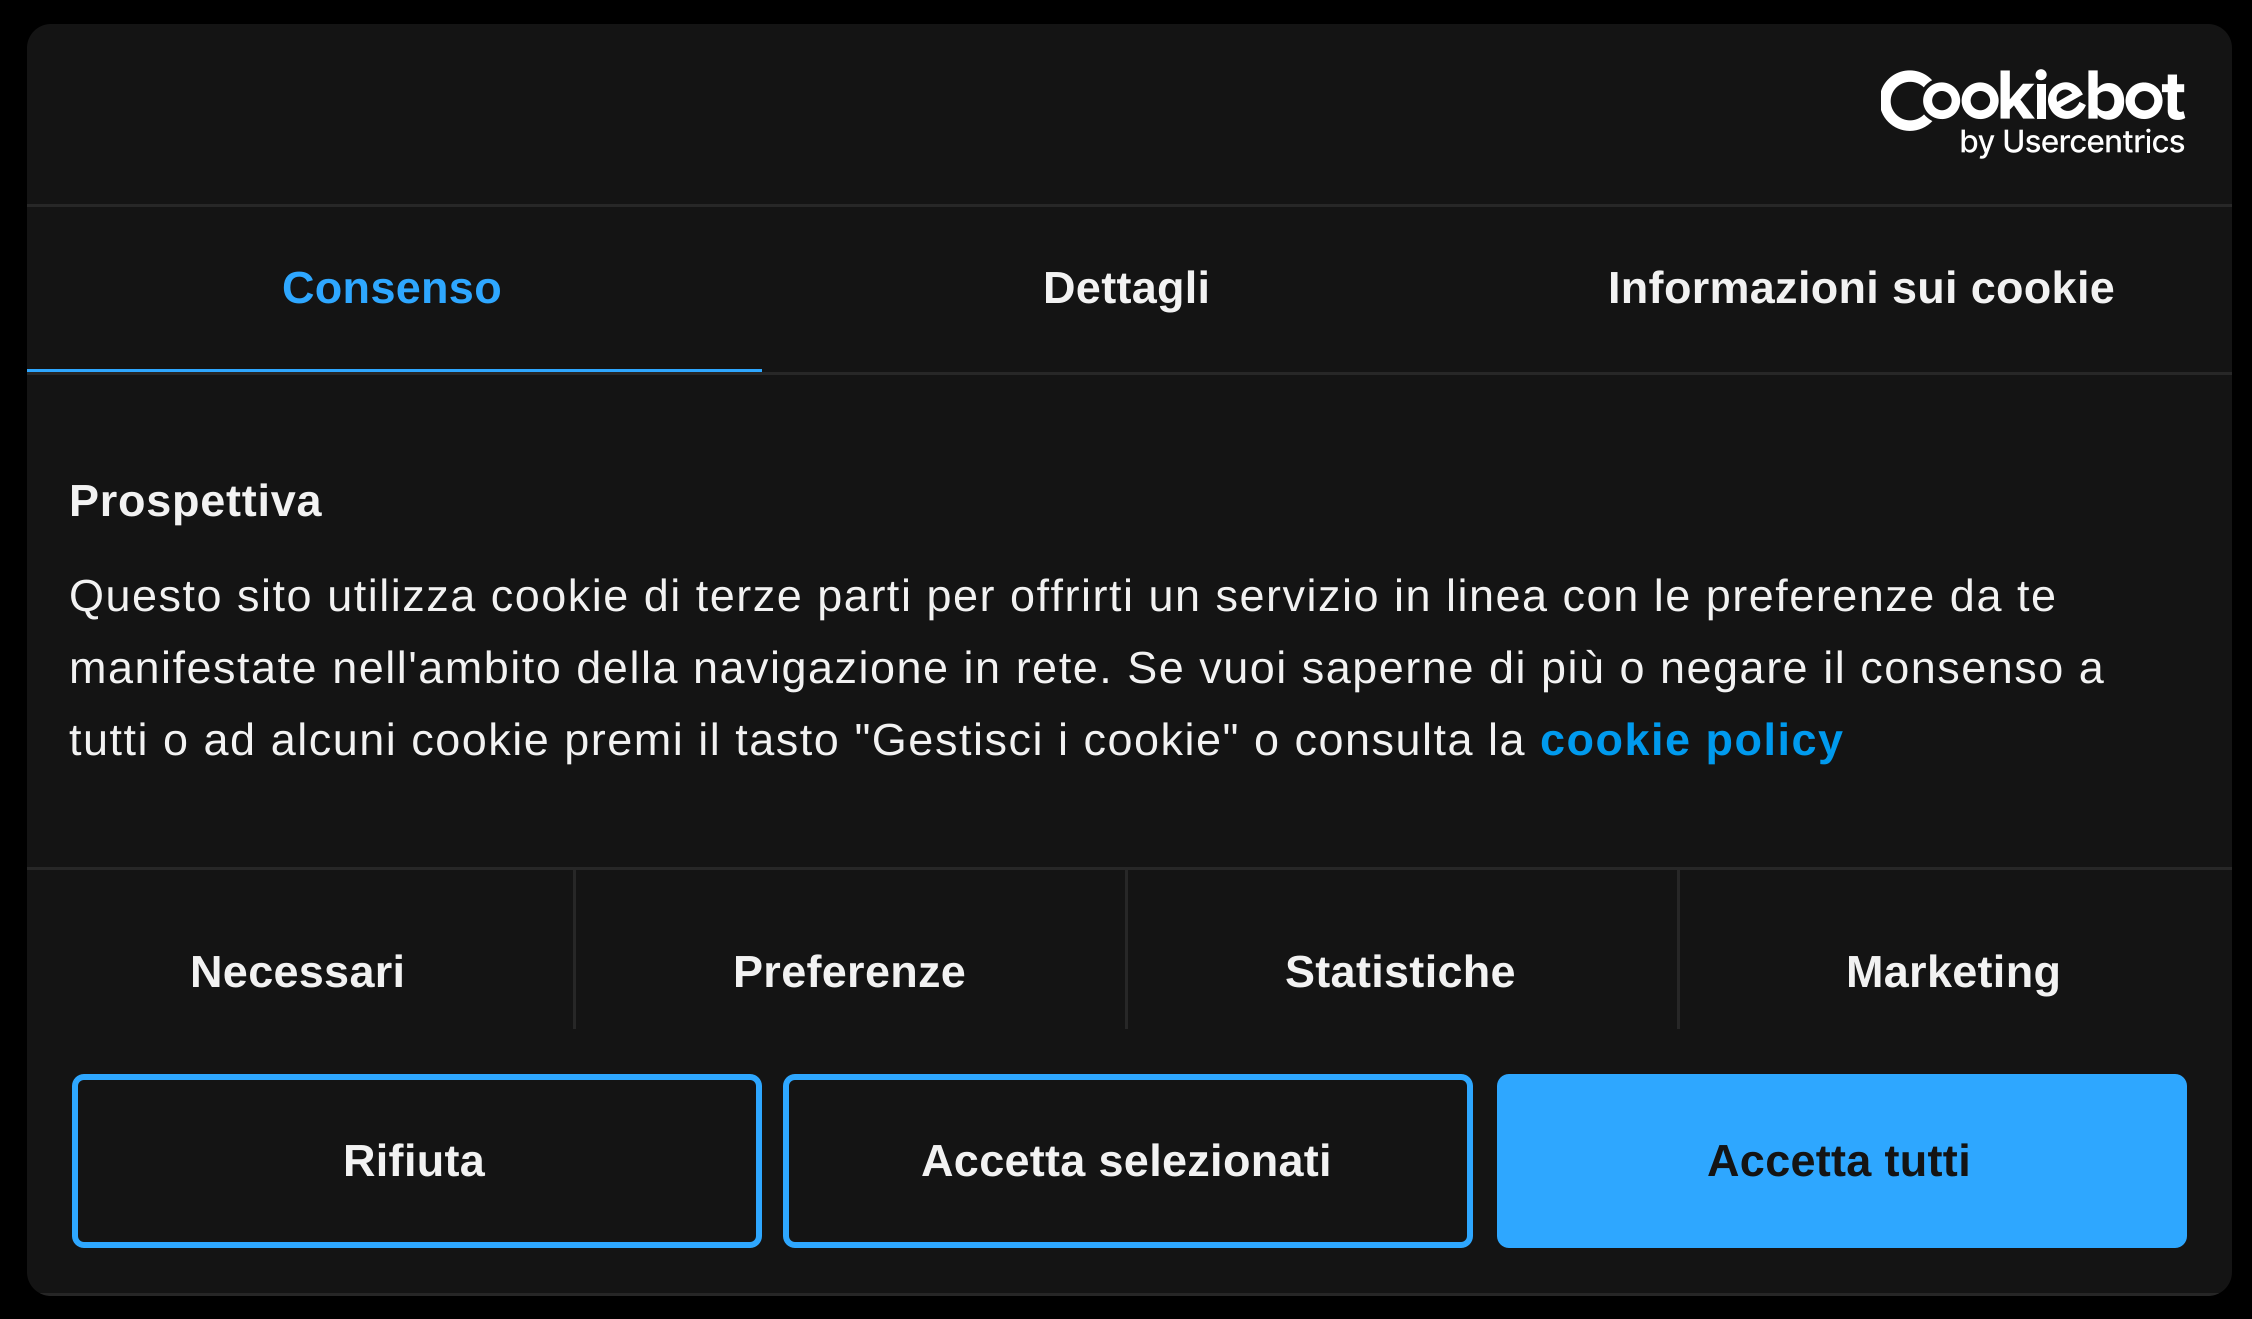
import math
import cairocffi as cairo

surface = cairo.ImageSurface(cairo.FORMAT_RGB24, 2252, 1319)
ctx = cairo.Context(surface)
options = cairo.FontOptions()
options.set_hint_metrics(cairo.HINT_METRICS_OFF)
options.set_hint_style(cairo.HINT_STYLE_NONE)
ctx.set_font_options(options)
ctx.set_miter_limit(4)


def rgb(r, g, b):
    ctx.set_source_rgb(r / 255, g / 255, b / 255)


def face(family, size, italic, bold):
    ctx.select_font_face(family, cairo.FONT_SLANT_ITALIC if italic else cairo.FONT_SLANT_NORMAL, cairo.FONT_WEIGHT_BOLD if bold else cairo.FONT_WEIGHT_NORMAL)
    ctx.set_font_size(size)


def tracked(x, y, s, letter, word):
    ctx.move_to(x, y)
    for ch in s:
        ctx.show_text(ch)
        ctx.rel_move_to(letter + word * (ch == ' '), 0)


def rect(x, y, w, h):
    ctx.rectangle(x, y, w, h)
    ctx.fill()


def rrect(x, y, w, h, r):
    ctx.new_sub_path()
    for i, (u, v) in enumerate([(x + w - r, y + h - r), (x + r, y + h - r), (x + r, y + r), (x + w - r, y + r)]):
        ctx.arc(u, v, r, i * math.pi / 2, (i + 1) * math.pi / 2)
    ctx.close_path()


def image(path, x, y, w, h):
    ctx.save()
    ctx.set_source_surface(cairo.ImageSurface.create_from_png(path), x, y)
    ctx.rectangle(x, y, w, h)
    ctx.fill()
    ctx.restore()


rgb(0, 0, 0)
ctx.paint()
rgb(20, 20, 20)
rrect(27, 24, 2205, 1272, 24)
ctx.fill()
rgb(39, 39, 39)
rect(27, 204, 2205, 3)
image('image0.png', 1881, 69, 305, 90)
rect(27, 372, 2205, 3)
rgb(46, 167, 255)
rect(27, 369, 735, 3)
face('Liberation Sans', 45, 0, 1)
tracked(282, 303, 'Consenso', 0.3, 0)
rgb(242, 242, 242)
tracked(1043, 303, 'Dettagli', 0.3, 0)
tracked(1608, 303, 'Informazioni sui cookie', 0.3, 0)
rgb(39, 39, 39)
rect(27, 867, 2205, 3)
rgb(242, 242, 242)
tracked(69, 516, 'Prospettiva', 0.75, 0)
face('Liberation Sans', 45, 0, 0)
tracked(69, 611, 'Questo sito utilizza cookie di terze parti per offrirti un servizio in linea con le preferenze da te', 1.5, 0)
tracked(69, 683, 'manifestate nell\'ambito della navigazione in rete. Se vuoi saperne di più o negare il consenso a', 1.5, 0)
tracked(69, 755, 'tutti o ad alcuni cookie premi il tasto "Gestisci i cookie" o consulta la', 1.5, 0)
face('Liberation Sans', 45, 0, 1)
rgb(0, 154, 238)
tracked(1540, 755, 'cookie policy', 1.5, 0)
rgb(39, 39, 39)
rect(573, 870, 3, 159)
rgb(242, 242, 242)
tracked(190, 987, 'Necessari', 0.3, 0)
rgb(39, 39, 39)
rect(1125, 870, 3, 159)
rgb(242, 242, 242)
tracked(733, 987, 'Preferenze', 0.3, 0)
rgb(39, 39, 39)
rect(1677, 870, 3, 159)
rgb(242, 242, 242)
tracked(1285, 987, 'Statistiche', 0.3, 0)
tracked(1846, 987, 'Marketing', 0.3, 0)
ctx.save()
rrect(27, 24, 2205, 1272, 24)
ctx.clip()
ctx.set_source_rgba(1, 1, 1, 0.08)
rect(40, 1293, 2179, 3)
ctx.restore()
rrect(75, 1077, 684, 168, 9)
rgb(46, 167, 255)
ctx.set_line_width(6)
ctx.stroke()
rgb(242, 242, 242)
tracked(343, 1176, 'Rifiuta', 0.3, 0)
rrect(786, 1077, 684, 168, 9)
rgb(46, 167, 255)
ctx.stroke()
rgb(242, 242, 242)
tracked(921, 1176, 'Accetta selezionati', 0.3, 0)
rgb(46, 167, 255)
rrect(1500, 1077, 684, 168, 9)
ctx.fill_preserve()
ctx.stroke()
rgb(20, 20, 20)
tracked(1707, 1176, 'Accetta tutti', 0.3, 0)
surface.write_to_png('render.png')
